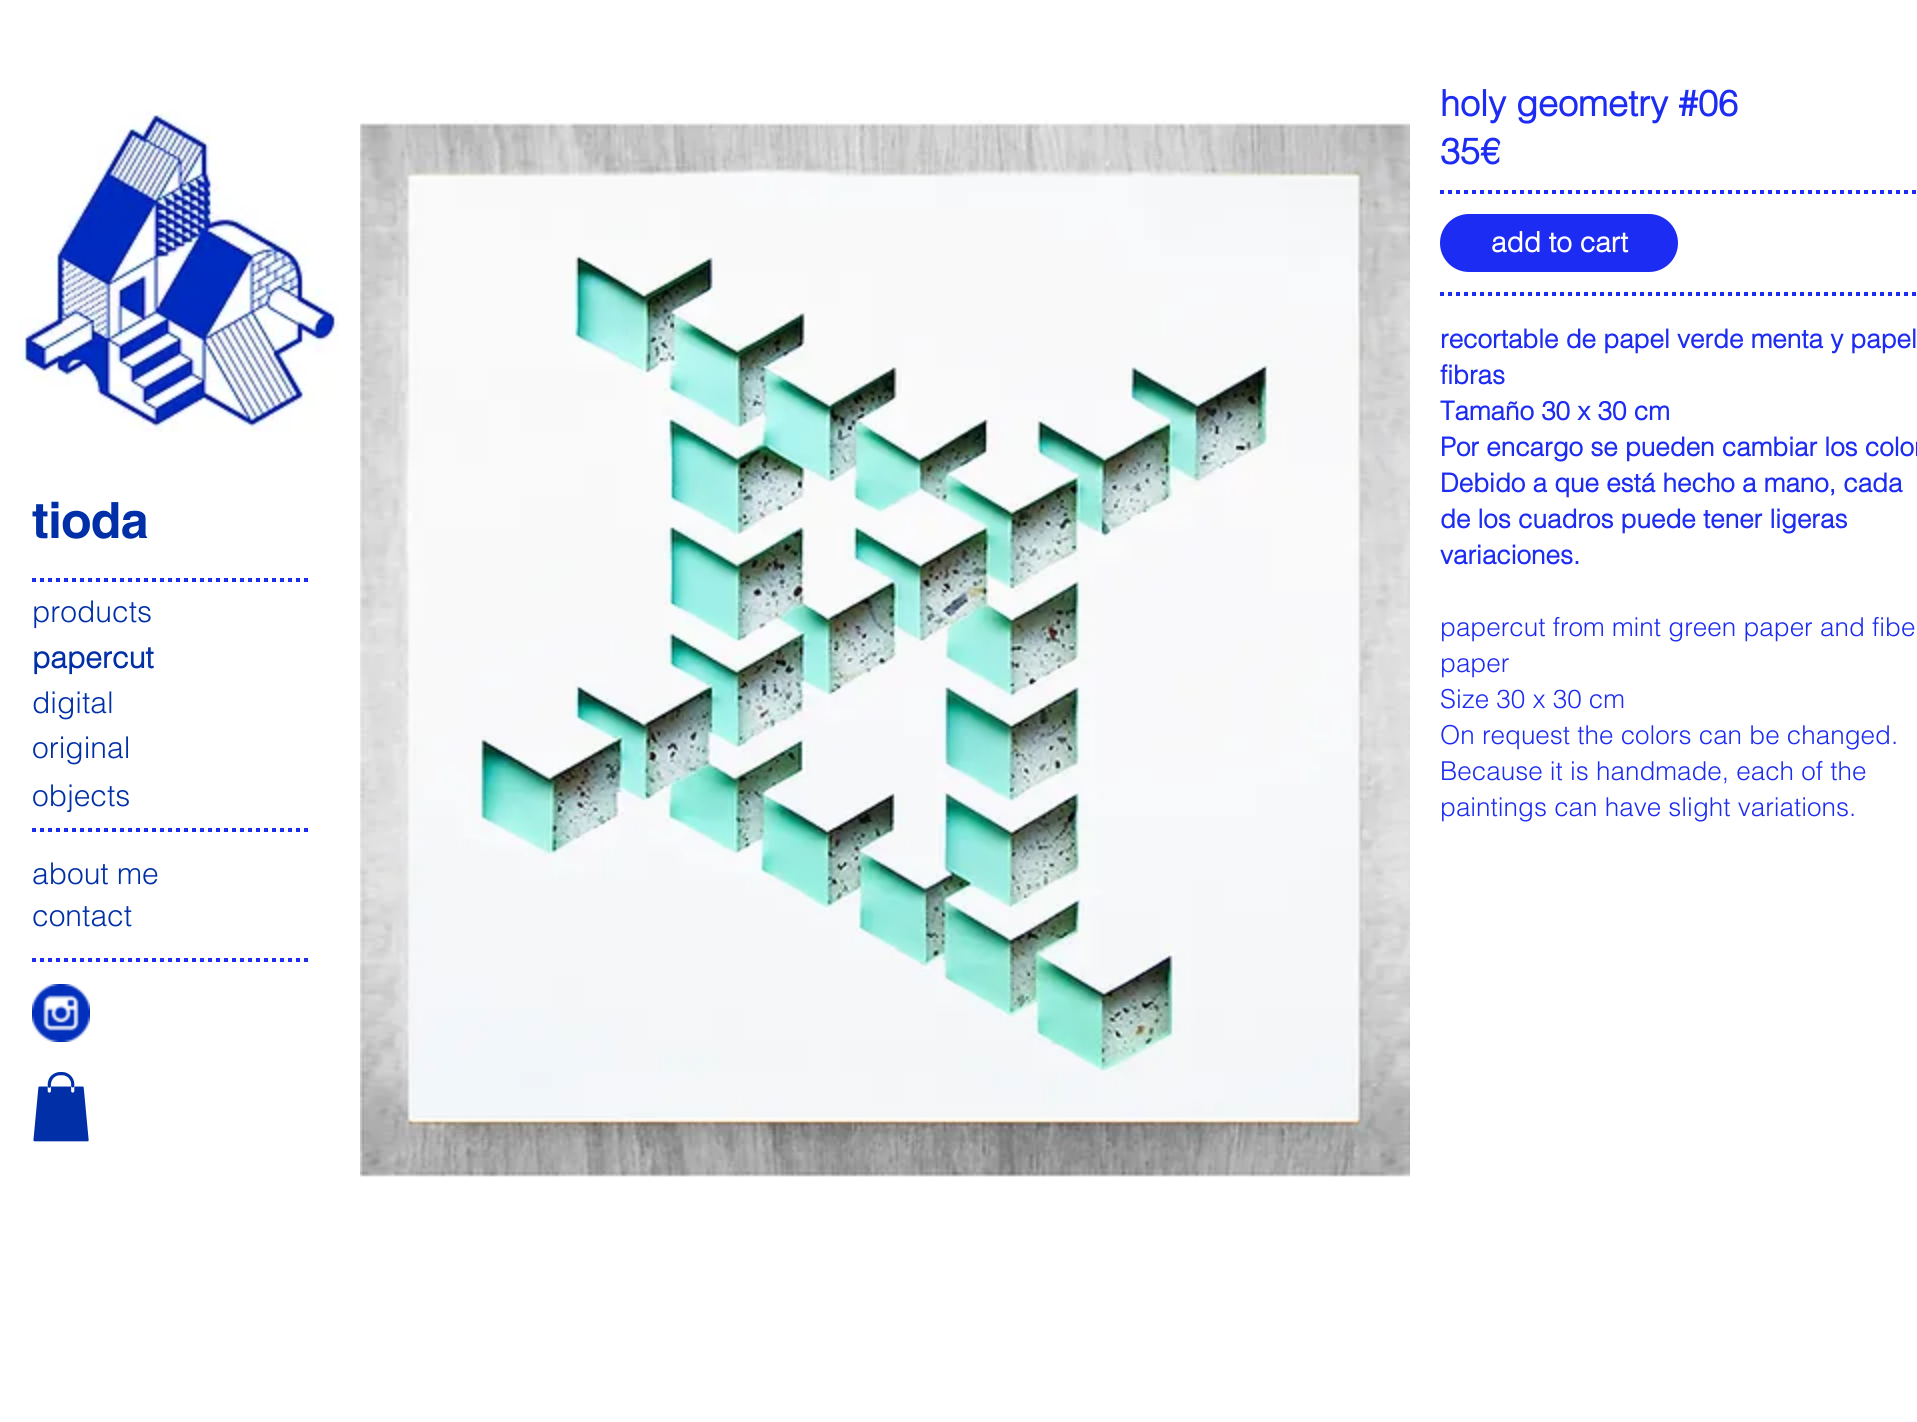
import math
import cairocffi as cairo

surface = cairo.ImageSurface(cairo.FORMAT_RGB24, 1917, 1422)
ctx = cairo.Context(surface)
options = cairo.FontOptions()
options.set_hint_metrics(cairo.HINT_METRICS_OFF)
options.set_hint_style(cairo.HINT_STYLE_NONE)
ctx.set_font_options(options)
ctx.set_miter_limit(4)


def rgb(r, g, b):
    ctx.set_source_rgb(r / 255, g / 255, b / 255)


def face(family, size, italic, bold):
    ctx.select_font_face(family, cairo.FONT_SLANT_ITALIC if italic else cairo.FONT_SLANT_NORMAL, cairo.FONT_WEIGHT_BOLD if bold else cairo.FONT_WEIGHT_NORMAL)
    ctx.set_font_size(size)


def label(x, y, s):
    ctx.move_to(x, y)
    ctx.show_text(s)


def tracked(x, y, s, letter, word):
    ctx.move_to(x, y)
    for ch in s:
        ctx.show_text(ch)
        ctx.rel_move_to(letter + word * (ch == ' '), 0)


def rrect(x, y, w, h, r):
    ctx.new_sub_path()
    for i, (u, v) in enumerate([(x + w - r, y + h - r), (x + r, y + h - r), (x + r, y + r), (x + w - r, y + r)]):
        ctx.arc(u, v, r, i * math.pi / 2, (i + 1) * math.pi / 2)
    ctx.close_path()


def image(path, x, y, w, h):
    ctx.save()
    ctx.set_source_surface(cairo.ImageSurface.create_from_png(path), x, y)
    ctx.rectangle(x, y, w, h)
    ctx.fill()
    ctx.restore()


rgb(255, 255, 255)
ctx.paint()
face('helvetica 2', 36, 0, 1)
rgb(29, 44, 243)
label(1440, 116, 'holy geometry #06')
image('image0.png', 360, 120, 1050, 1057)
label(1440, 164, '35€')
ctx.new_path()
ctx.move_to(1440, 192)
ctx.line_to(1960, 192)
ctx.set_line_width(4)
ctx.set_dash([4, 4])
ctx.stroke()
rrect(1440, 214, 238, 58, 29)
ctx.fill()
face('helvetica 2', 28, 0, 1)
rgb(255, 255, 255)
label(1491, 252, 'add to cart')
ctx.new_path()
ctx.move_to(1440, 294)
ctx.line_to(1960, 294)
rgb(29, 44, 243)
ctx.stroke()
image('image1.png', 18, 110, 321, 323)
face('helvetica', 50, 0, 1)
rgb(0, 47, 167)
tracked(32, 538, 'tioda', -0.75, 0)
ctx.new_path()
ctx.move_to(32, 580)
ctx.line_to(312, 580)
rgb(29, 44, 243)
ctx.stroke()
face('helvetica Light', 30, 0, 0)
rgb(0, 47, 167)
label(32, 622, 'products')
face('helvetica 2', 30, 0, 1)
label(32, 668, 'papercut')
face('helvetica Light', 30, 0, 0)
label(32, 713, 'digital')
label(32, 758, 'original')
label(32, 806, 'objects')
ctx.new_path()
ctx.move_to(32, 830)
ctx.line_to(312, 830)
rgb(29, 44, 243)
ctx.stroke()
rgb(0, 47, 167)
label(32, 884, 'about me')
label(32, 926, 'contact')
ctx.new_path()
ctx.move_to(32, 960)
ctx.line_to(312, 960)
rgb(29, 44, 243)
ctx.stroke()
image('image2.png', 32, 984, 58, 58)
face('helvetica 2', 26, 0, 1)
label(1440, 348, 'recortable de papel verde menta y papel')
label(1440, 384, 'fibras')
label(1440, 420, 'Tamaño 30 x 30 cm')
label(1440, 456, 'Por encargo se pueden cambiar los color')
label(1440, 492, 'Debido a que está hecho a mano, cada')
label(1440, 528, 'de los cuadros puede tener ligeras')
label(1440, 564, 'variaciones.')
face('helvetica Light', 26, 0, 0)
label(1440, 636, 'papercut from mint green paper and fibe')
label(1440, 672, 'paper')
label(1440, 708, 'Size 30 x 30 cm')
label(1440, 744, 'On request the colors can be changed.')
label(1440, 780, 'Because it is handmade, each of the')
label(1440, 816, 'paintings can have slight variations.')
image('image3.png', 33, 1072, 56, 70)
surface.write_to_png('render.png')
